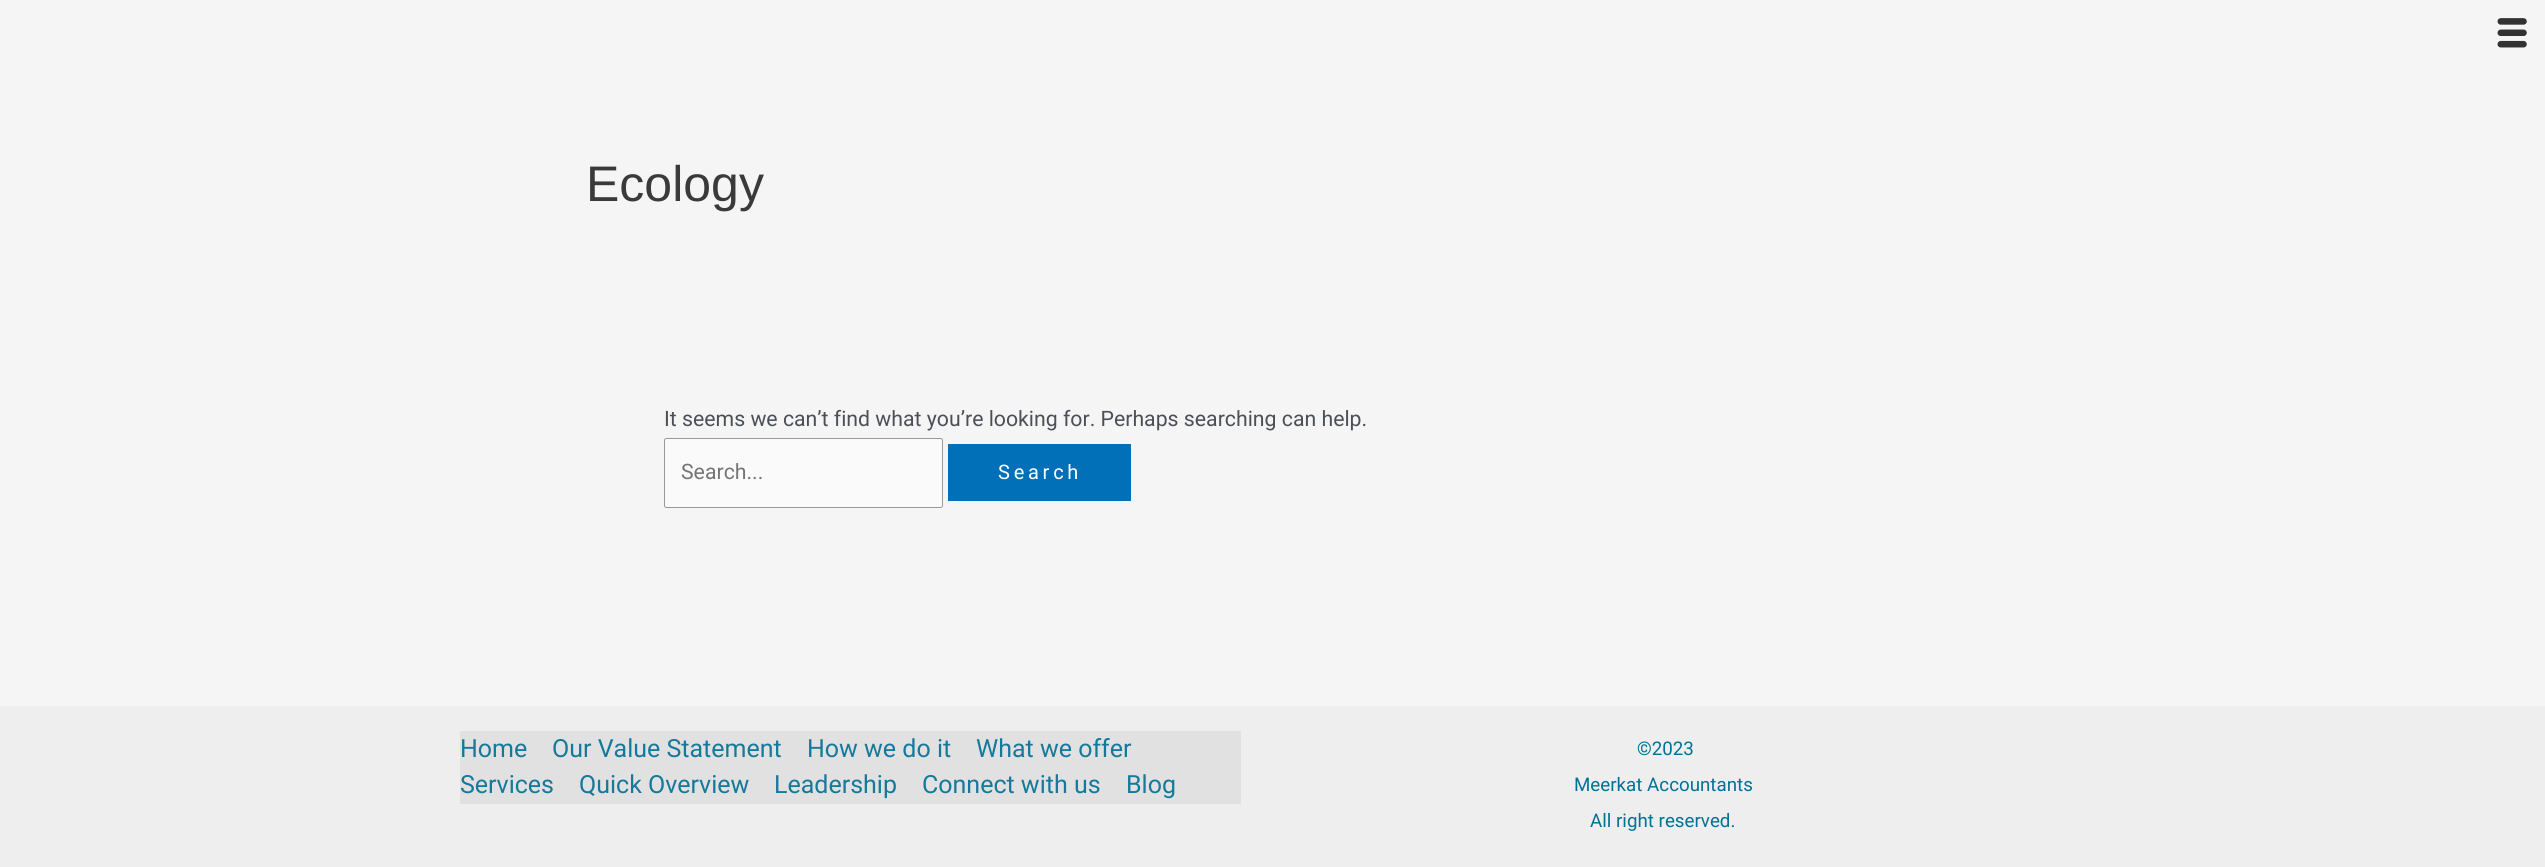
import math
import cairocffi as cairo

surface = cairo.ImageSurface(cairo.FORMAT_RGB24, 2545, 867)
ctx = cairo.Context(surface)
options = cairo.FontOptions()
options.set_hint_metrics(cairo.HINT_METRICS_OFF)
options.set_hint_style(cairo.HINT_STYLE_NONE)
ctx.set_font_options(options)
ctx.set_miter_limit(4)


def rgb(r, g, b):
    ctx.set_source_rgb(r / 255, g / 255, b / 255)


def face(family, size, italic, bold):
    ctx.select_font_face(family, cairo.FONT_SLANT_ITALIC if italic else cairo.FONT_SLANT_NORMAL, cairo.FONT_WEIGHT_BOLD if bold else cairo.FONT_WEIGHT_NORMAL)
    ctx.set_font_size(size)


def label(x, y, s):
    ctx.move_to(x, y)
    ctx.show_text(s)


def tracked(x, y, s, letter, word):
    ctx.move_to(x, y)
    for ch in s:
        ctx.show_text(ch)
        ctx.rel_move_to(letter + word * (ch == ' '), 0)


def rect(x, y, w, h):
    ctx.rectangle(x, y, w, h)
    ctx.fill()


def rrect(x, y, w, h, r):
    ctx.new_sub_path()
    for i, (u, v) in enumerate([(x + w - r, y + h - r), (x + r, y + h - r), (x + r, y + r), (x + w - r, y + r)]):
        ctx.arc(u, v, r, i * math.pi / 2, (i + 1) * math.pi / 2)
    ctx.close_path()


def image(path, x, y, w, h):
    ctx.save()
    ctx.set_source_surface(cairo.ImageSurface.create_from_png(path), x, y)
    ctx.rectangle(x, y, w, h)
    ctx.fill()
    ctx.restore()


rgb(245, 245, 245)
ctx.paint()
image('image0.png', 2497, 18, 30, 30)
face('Liberation Sans', 50, 0, 0)
rgb(58, 58, 58)
label(586, 201, 'Ecology')
face('Roboto', 21.25, 0, 0)
rgb(75, 79, 88)
label(664, 426, 'It seems we can’t find what you’re looking for. Perhaps searching can help.')
rgb(250, 250, 250)
rrect(664.5, 438.5, 278, 69, 2)
ctx.fill_preserve()
rgb(152, 152, 152)
ctx.set_line_width(1)
ctx.stroke()
rgb(117, 117, 117)
label(681, 479, 'Search...')
rgb(1, 112, 185)
rect(948, 444, 183, 57)
face('Roboto', 20, 0, 0)
rgb(255, 255, 255)
tracked(998, 479, 'Search', 3.75, 0)
rgb(238, 238, 238)
rect(0, 706, 2545, 161)
rgb(226, 225, 225)
rect(460, 731, 781, 73)
face('Roboto', 25, 0, 0)
rgb(20, 121, 155)
label(460, 757, 'Home')
label(552, 757, 'Our Value Statement')
label(807, 757, 'How we do it')
label(976, 757, 'What we offer')
label(460, 793, 'Services')
label(579, 793, 'Quick Overview')
label(774, 793, 'Leadership')
label(922, 793, 'Connect with us')
label(1126, 793, 'Blog')
face('Roboto', 18.75, 0, 0)
rgb(0, 114, 149)
label(1637, 755, '©2023')
label(1574, 791, 'Meerkat Accountants')
label(1590, 827, 'All right reserved.')
surface.write_to_png('render.png')
